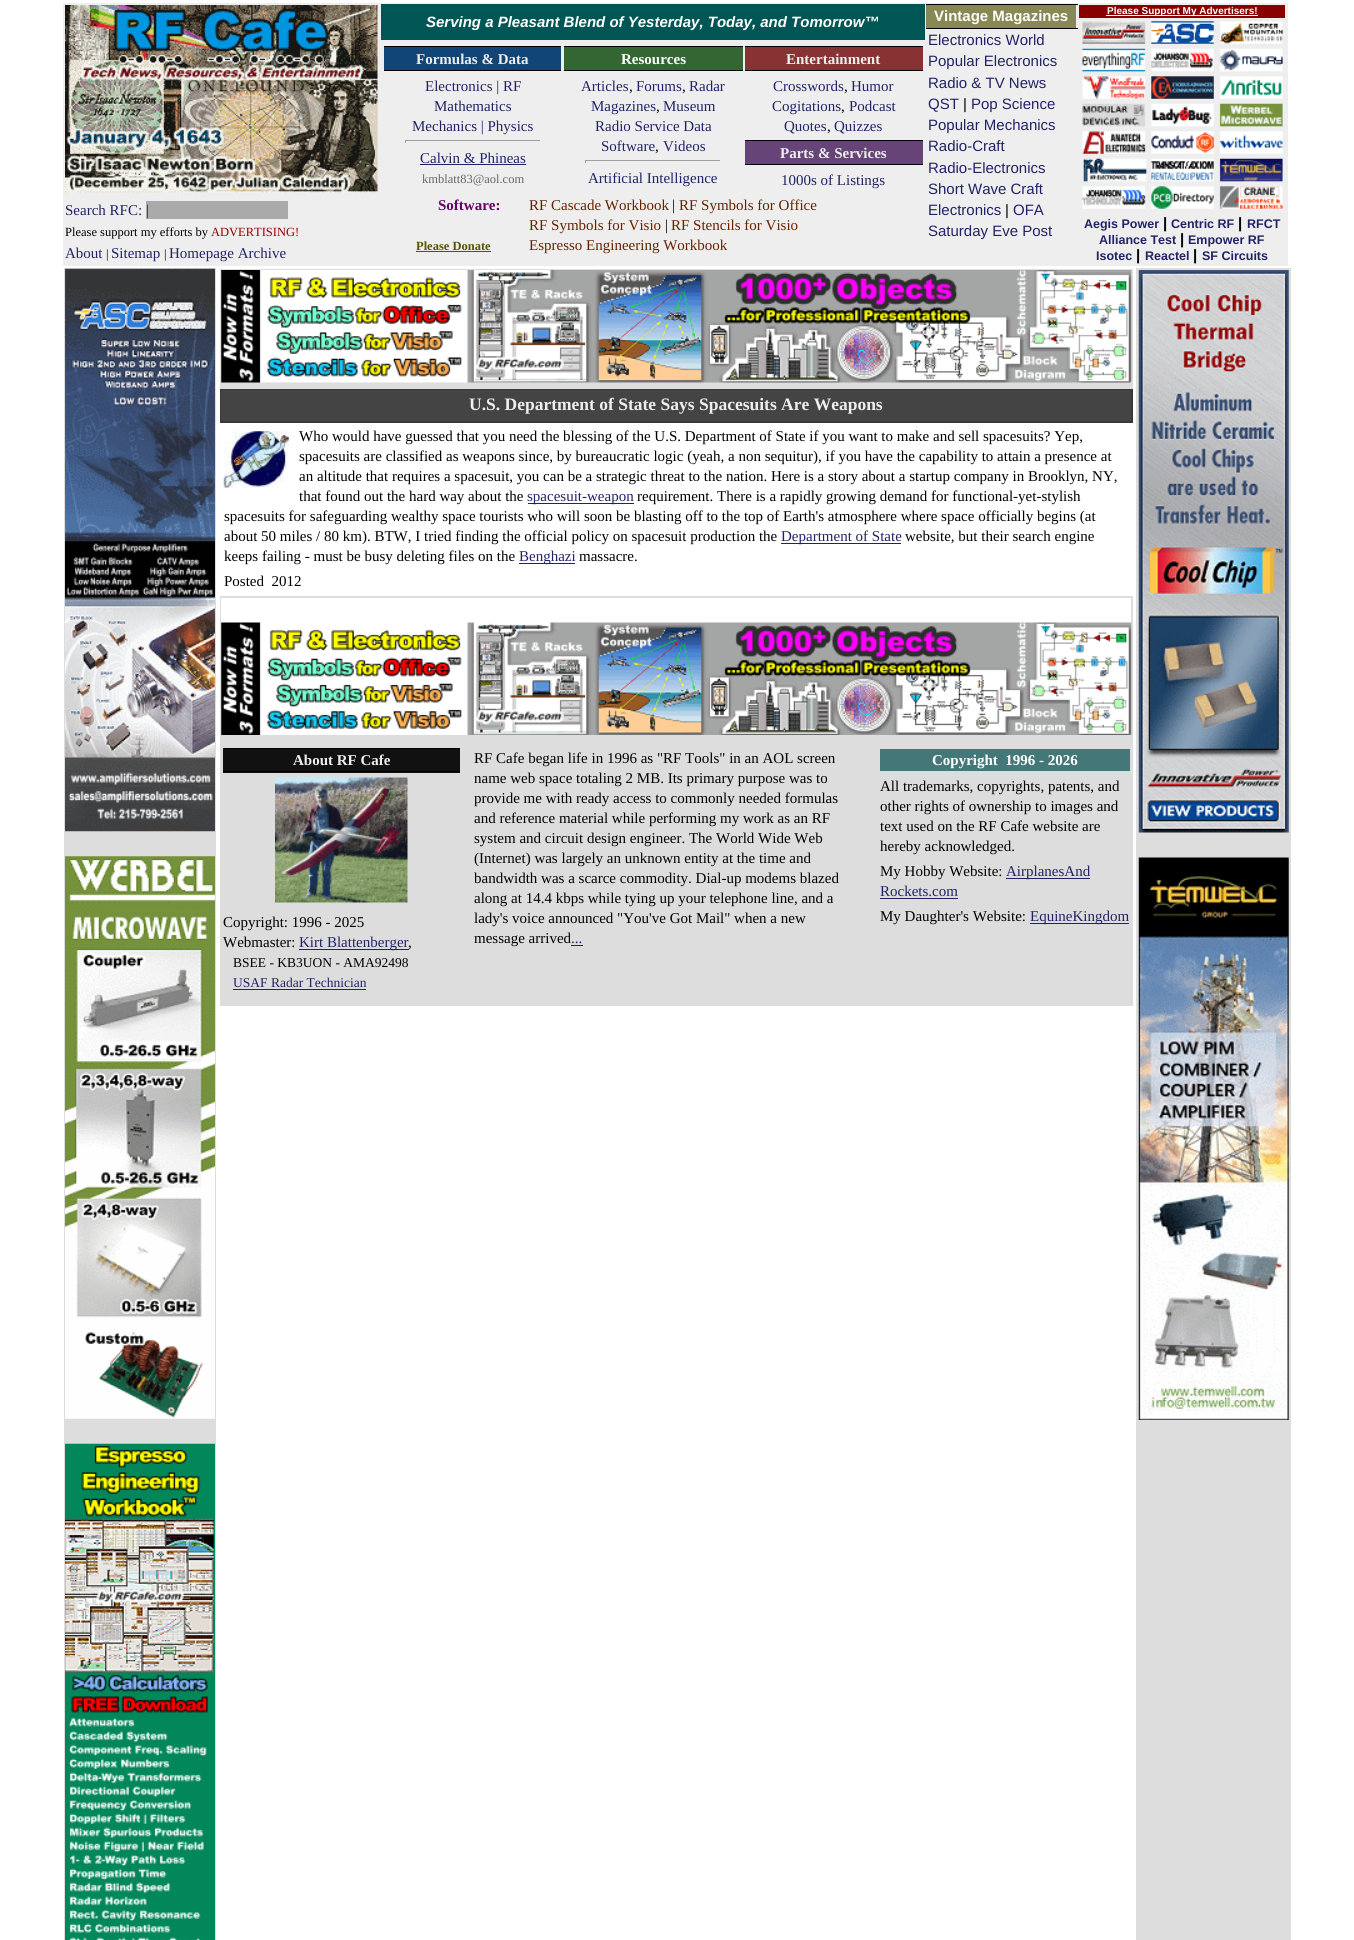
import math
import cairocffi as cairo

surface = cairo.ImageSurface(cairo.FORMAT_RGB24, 1354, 1940)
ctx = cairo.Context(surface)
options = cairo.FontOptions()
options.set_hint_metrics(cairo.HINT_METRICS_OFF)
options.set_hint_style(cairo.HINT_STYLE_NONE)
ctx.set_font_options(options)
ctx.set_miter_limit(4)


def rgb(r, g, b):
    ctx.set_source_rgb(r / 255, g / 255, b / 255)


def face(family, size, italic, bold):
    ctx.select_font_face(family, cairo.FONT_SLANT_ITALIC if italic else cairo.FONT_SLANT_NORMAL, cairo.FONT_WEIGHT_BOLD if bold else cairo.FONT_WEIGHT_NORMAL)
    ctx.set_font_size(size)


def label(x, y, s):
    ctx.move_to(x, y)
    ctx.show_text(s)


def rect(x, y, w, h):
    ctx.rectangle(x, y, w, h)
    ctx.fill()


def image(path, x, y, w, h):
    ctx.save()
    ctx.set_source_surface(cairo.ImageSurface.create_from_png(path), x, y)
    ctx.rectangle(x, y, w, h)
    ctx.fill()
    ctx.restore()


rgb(255, 255, 255)
ctx.paint()
rgb(238, 238, 238)
rect(63, 3, 1225, 263)
image('image0.png', 65, 5, 313, 188)
face('Liberation Serif', 15, 0, 0)
rgb(34, 34, 102)
label(65, 215, 'Search RFC:')
rgb(170, 170, 170)
rect(146, 201, 142, 18)
rgb(34, 34, 102)
label(146, 215, '|')
face('Liberation Serif', 12.5, 0, 0)
rgb(0, 0, 0)
label(65, 236, 'Please support my efforts by')
rgb(153, 0, 0)
label(211, 236, 'ADVERTISING!')
face('Liberation Serif', 15, 0, 0)
rgb(34, 34, 102)
label(65, 258, 'About')
face('Liberation Serif', 12.5, 0, 0)
rgb(0, 0, 0)
label(106, 258, '|')
face('Liberation Serif', 15, 0, 0)
rgb(34, 34, 102)
label(111, 258, 'Sitemap')
face('Liberation Serif', 12.5, 0, 0)
rgb(0, 0, 0)
label(164, 258, '|')
face('Liberation Serif', 15, 0, 0)
rgb(34, 34, 102)
label(169, 258, 'Homepage Archive')
rgb(0, 85, 85)
rect(381, 4, 544, 36)
face('Liberation Sans', 15, 1, 1)
rgb(255, 255, 255)
label(426, 27, 'Serving a Pleasant Blend of Yesterday, Today, and Tomorrow™')
rgb(136, 136, 85)
rect(926, 5, 150, 23)
rgb(0, 0, 0)
rect(926, 4, 152, 1)
rect(926, 28, 152, 1)
face('Liberation Sans', 15, 0, 1)
rgb(255, 255, 255)
label(934, 21, 'Vintage Magazines')
face('Liberation Sans', 15, 0, 0)
rgb(34, 34, 102)
label(928, 45, 'Electronics World')
label(928, 66, 'Popular Electronics')
label(928, 88, 'Radio & TV News')
label(928, 109, 'QST')
rgb(0, 0, 0)
label(963, 109, '|')
rgb(34, 34, 102)
label(971, 109, 'Pop Science')
label(928, 130, 'Popular Mechanics')
label(928, 151, 'Radio-Craft')
label(928, 173, 'Radio-Electronics')
label(928, 194, 'Short Wave Craft')
label(928, 215, 'Electronics')
rgb(0, 0, 0)
label(1005, 215, '|')
rgb(34, 34, 102)
label(1013, 215, 'OFA')
label(928, 236, 'Saturday Eve Post')
rgb(136, 0, 0)
rect(1079, 5, 206, 13)
rgb(255, 255, 255)
rect(1106, 15, 152, 1)
face('Liberation Sans', 10, 0, 1)
label(1107, 14, 'Please Support My Advertisers!')
image('image1.png', 1082, 21, 201, 188)
face('Liberation Sans', 12.5, 0, 1)
rgb(34, 34, 102)
label(1084, 228, 'Aegis Power')
face('Liberation Sans', 15, 0, 1)
rgb(0, 0, 0)
label(1163, 228, '|')
face('Liberation Sans', 12.5, 0, 1)
rgb(34, 34, 102)
label(1171, 228, 'Centric RF')
face('Liberation Sans', 15, 0, 1)
rgb(0, 0, 0)
label(1238, 228, '|')
face('Liberation Sans', 12.5, 0, 1)
rgb(34, 34, 102)
label(1247, 228, 'RFCT')
label(1099, 244, 'Alliance Test')
face('Liberation Sans', 15, 0, 1)
rgb(0, 0, 0)
label(1180, 244, '|')
face('Liberation Sans', 12.5, 0, 1)
rgb(34, 34, 102)
label(1188, 244, 'Empower RF')
label(1096, 260, 'Isotec')
face('Liberation Sans', 15, 0, 1)
rgb(0, 0, 0)
label(1136, 260, '|')
face('Liberation Sans', 12.5, 0, 1)
rgb(34, 34, 102)
label(1145, 260, 'Reactel')
face('Liberation Sans', 15, 0, 1)
rgb(0, 0, 0)
label(1193, 260, '|')
face('Liberation Sans', 12.5, 0, 1)
rgb(34, 34, 102)
label(1202, 260, 'SF Circuits')
rgb(17, 68, 119)
rect(384, 47, 177, 23)
rgb(0, 0, 0)
rect(384, 46, 177, 1)
rect(384, 70, 177, 1)
face('Liberation Serif', 15, 0, 1)
rgb(238, 238, 238)
label(416, 64, 'Formulas & Data')
face('Liberation Serif', 15, 0, 0)
rgb(34, 34, 102)
label(425, 91, 'Electronics | RF')
label(434, 111, 'Mathematics')
label(412, 131, 'Mechanics | Physics')
rgb(159, 159, 159)
rect(405, 140, 136, 1)
rgb(238, 238, 238)
rect(540, 140, 1, 3)
rgb(159, 159, 159)
rect(405, 140, 1, 3)
rgb(34, 34, 102)
label(420, 163, 'Calvin & Phineas')
rect(420, 164, 106, 1)
face('Liberation Serif', 12.5, 0, 0)
rgb(102, 102, 102)
label(422, 183, 'kmblatt83@aol.com')
rgb(51, 102, 51)
rect(564, 47, 179, 23)
rgb(0, 0, 0)
rect(564, 46, 179, 1)
rect(564, 70, 179, 1)
face('Liberation Serif', 15, 0, 1)
rgb(255, 255, 255)
label(621, 64, 'Resources')
face('Liberation Serif', 15, 0, 0)
rgb(34, 34, 102)
label(581, 91, 'Articles')
rgb(0, 0, 0)
label(629, 91, ',')
rgb(34, 34, 102)
label(636, 91, 'Forums')
rgb(0, 0, 0)
label(682, 91, ',')
rgb(34, 34, 102)
label(689, 91, 'Radar')
label(591, 111, 'Magazines')
rgb(0, 0, 0)
label(656, 111, ',')
rgb(34, 34, 102)
label(663, 111, 'Museum')
label(595, 131, 'Radio Service Data')
label(601, 151, 'Software')
rgb(0, 0, 0)
label(655, 151, ',')
rgb(34, 34, 102)
label(663, 151, 'Videos')
rgb(159, 159, 159)
rect(585, 160, 136, 1)
rgb(238, 238, 238)
rect(720, 160, 1, 3)
rgb(159, 159, 159)
rect(585, 160, 1, 3)
rgb(34, 34, 102)
label(588, 183, 'Artificial Intelligence')
rgb(136, 51, 51)
rect(745, 47, 178, 23)
rgb(0, 0, 0)
rect(745, 46, 178, 1)
rect(745, 70, 178, 1)
face('Liberation Serif', 15, 0, 1)
rgb(238, 238, 238)
label(786, 64, 'Entertainment')
face('Liberation Serif', 15, 0, 0)
rgb(34, 34, 102)
label(773, 91, 'Crosswords')
rgb(0, 0, 0)
label(844, 91, ',')
rgb(34, 34, 102)
label(851, 91, 'Humor')
label(772, 111, 'Cogitations')
rgb(0, 0, 0)
label(841, 111, ',')
rgb(34, 34, 102)
label(849, 111, 'Podcast')
label(784, 131, 'Quotes')
rgb(0, 0, 0)
label(827, 131, ',')
rgb(34, 34, 102)
label(834, 131, 'Quizzes')
rgb(102, 68, 119)
rect(745, 141, 178, 23)
rgb(0, 0, 0)
rect(745, 140, 178, 1)
rect(745, 164, 178, 1)
face('Liberation Serif', 15, 0, 1)
rgb(238, 238, 238)
label(780, 158, 'Parts & Services')
face('Liberation Serif', 15, 0, 0)
rgb(34, 34, 102)
label(781, 185, '1000s of Listings')
face('Liberation Serif', 15, 0, 1)
rgb(102, 0, 102)
label(438, 210, 'Software:')
face('Liberation Serif', 12.5, 0, 1)
rgb(85, 85, 0)
label(416, 250, 'Please Donate')
rect(416, 251, 75, 1)
face('Liberation Serif', 15, 0, 0)
rgb(102, 34, 0)
label(529, 210, 'RF Cascade Workbook')
rgb(0, 0, 0)
label(672, 210, '|')
rgb(102, 34, 0)
label(679, 210, 'RF Symbols for Office')
label(529, 230, 'RF Symbols for Visio')
rgb(0, 0, 0)
label(665, 230, '|')
rgb(102, 34, 0)
label(671, 230, 'RF Stencils for Visio')
label(529, 250, 'Espresso Engineering Workbook')
rgb(221, 221, 221)
rect(64, 268, 152, 1672)
image('image2.png', 65, 268, 150, 564)
image('image3.png', 65, 856, 150, 563)
image('image4.png', 65, 1443, 150, 497)
rect(220, 269, 913, 120)
image('image5.png', 221, 270, 911, 113)
rgb(59, 57, 56)
rect(220, 389, 913, 34)
rgb(68, 68, 68)
rect(221, 390, 910, 31)
face('Liberation Serif', 17.5, 0, 1)
rgb(238, 238, 238)
label(469, 410, 'U.S. Department of State Says Spacesuits Are Weapons')
image('image6.png', 223, 431, 66, 57)
face('Liberation Serif', 15, 0, 0)
rgb(0, 0, 0)
label(299, 441, 'Who would have guessed that you need the blessing of the U.S. Department of State if you want to make and sell spacesuits? Yep,')
label(299, 461, 'spacesuits are classified as weapons since, by bureaucratic logic (yeah, a non sequitur), if you have the capability to attain a presence at')
label(299, 481, 'an altitude that requires a spacesuit, you can be a strategic threat to the nation. Here is a story about a startup company in Brooklyn, NY,')
label(299, 501, 'that found out the hard way about the')
rgb(34, 34, 102)
rect(528, 503, 106, 1)
label(527, 501, 'spacesuit-weapon')
rgb(0, 0, 0)
label(637, 501, 'requirement. There is a rapidly growing demand for functional-yet-stylish')
label(224, 521, 'spacesuits for safeguarding wealthy space tourists who will soon be blasting off to the top of Earth\'s atmosphere where space officially begins (at')
label(224, 541, 'about 50 miles / 80 km). BTW, I tried finding the official policy on spacesuit production the')
rgb(34, 34, 102)
rect(781, 543, 120, 1)
label(781, 541, 'Department of State')
rgb(0, 0, 0)
label(905, 541, 'website, but their search engine')
label(224, 561, 'keeps failing - must be busy deleting files on the')
rgb(34, 34, 102)
rect(519, 563, 56, 1)
label(519, 561, 'Benghazi')
rgb(0, 0, 0)
label(579, 561, 'massacre.')
label(224, 586, 'Posted  2012')
rgb(221, 221, 221)
rect(220, 596, 913, 410)
rgb(255, 255, 255)
rect(221, 598, 910, 25)
image('image7.png', 221, 622, 911, 113)
rgb(17, 17, 17)
rect(223, 749, 237, 24)
rgb(0, 0, 0)
rect(223, 748, 237, 1)
rect(223, 771, 237, 1)
face('Liberation Serif', 15, 0, 1)
rgb(238, 238, 238)
label(293, 765, 'About RF Cafe')
image('image8.png', 275, 777, 133, 126)
face('Liberation Serif', 15, 0, 0)
rgb(0, 0, 0)
label(223, 927, 'Copyright: 1996 - 2025')
label(223, 947, 'Webmaster:')
rgb(34, 34, 102)
rect(299, 949, 110, 1)
label(299, 947, 'Kirt Blattenberger')
rgb(0, 0, 0)
label(408, 947, ',')
face('Liberation Serif', 13.5, 0, 0)
label(233, 967, 'BSEE - KB3UON - AMA92498')
rgb(34, 34, 102)
label(233, 987, 'USAF Radar Technician')
rect(233, 989, 133, 1)
face('Liberation Serif', 15, 0, 0)
rgb(0, 0, 0)
label(474, 763, 'RF Cafe began life in 1996 as "RF Tools" in an AOL screen')
label(474, 783, 'name web space totaling 2 MB. Its primary purpose was to')
label(474, 803, 'provide me with ready access to commonly needed formulas')
label(474, 823, 'and reference material while performing my work as an RF')
label(474, 843, 'system and circuit design engineer. The World Wide Web')
label(474, 863, '(Internet) was largely an unknown entity at the time and')
label(474, 883, 'bandwidth was a scarce commodity. Dial-up modems blazed')
label(474, 903, 'along at 14.4 kbps while tying up your telephone line, and a')
label(474, 923, 'lady\'s voice announced "You\'ve Got Mail" when a new')
label(474, 943, 'message arrived')
rgb(34, 34, 102)
label(571, 943, '...')
rect(571, 945, 12, 1)
rgb(68, 119, 119)
rect(880, 749, 250, 22)
face('Liberation Serif', 15, 0, 1)
rgb(255, 255, 255)
label(932, 765, 'Copyright  1996 - 2026')
face('Liberation Serif', 15, 0, 0)
rgb(0, 0, 0)
label(880, 791, 'All trademarks, copyrights, patents, and')
label(880, 811, 'other rights of ownership to images and')
label(880, 831, 'text used on the RF Cafe website are')
label(880, 851, 'hereby acknowledged.')
label(880, 876, 'My Hobby Website:')
rgb(34, 34, 102)
rect(1006, 878, 84, 1)
label(1006, 876, 'AirplanesAnd')
label(880, 896, 'Rockets.com')
rect(880, 898, 78, 1)
rgb(0, 0, 0)
label(880, 921, 'My Daughter\'s Website:')
rgb(34, 34, 102)
rect(1030, 923, 99, 1)
label(1030, 921, 'EquineKingdom')
rgb(221, 221, 221)
rect(1136, 268, 155, 1672)
image('image9.png', 1138, 270, 151, 563)
image('image10.png', 1138, 857, 151, 563)
surface.write_to_png('render.png')
